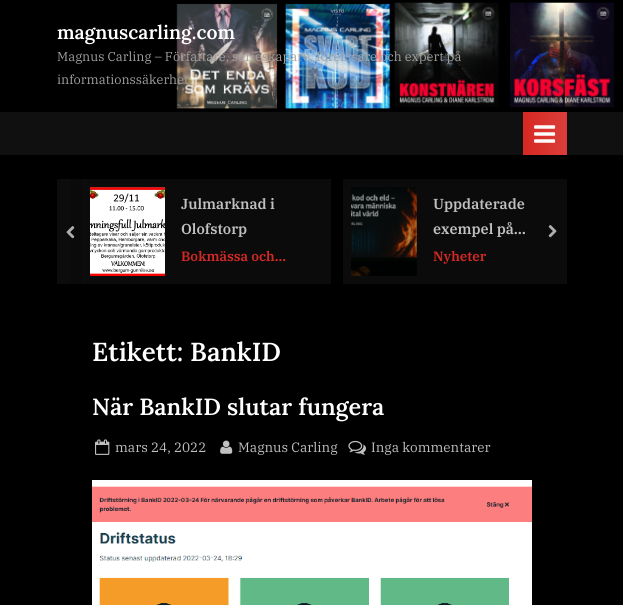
import math
import cairocffi as cairo

surface = cairo.ImageSurface(cairo.FORMAT_RGB24, 623, 605)
ctx = cairo.Context(surface)
options = cairo.FontOptions()
options.set_hint_metrics(cairo.HINT_METRICS_OFF)
options.set_hint_style(cairo.HINT_STYLE_NONE)
ctx.set_font_options(options)
ctx.set_miter_limit(4)


def rgb(r, g, b):
    ctx.set_source_rgb(r / 255, g / 255, b / 255)


def face(family, size, italic, bold):
    ctx.select_font_face(family, cairo.FONT_SLANT_ITALIC if italic else cairo.FONT_SLANT_NORMAL, cairo.FONT_WEIGHT_BOLD if bold else cairo.FONT_WEIGHT_NORMAL)
    ctx.set_font_size(size)


def label(x, y, s):
    ctx.move_to(x, y)
    ctx.show_text(s)


def rect(x, y, w, h):
    ctx.rectangle(x, y, w, h)
    ctx.fill()


def image(path, x, y, w, h):
    ctx.save()
    ctx.set_source_surface(cairo.ImageSurface.create_from_png(path), x, y)
    ctx.rectangle(x, y, w, h)
    ctx.fill()
    ctx.restore()


rgb(0, 0, 0)
ctx.paint()
rgb(10, 10, 10)
rect(70, 179, 12, 105)
image('image0.png', 176, 2, 438, 107)
face('Lora SemiBold', 19.25, 0, 0)
rgb(255, 255, 255)
label(57, 39, 'magnuscarling.com')
face('IBM Plex Serif', 12.8, 0, 0)
rgb(160, 160, 160)
label(57, 61, 'Magnus Carling – Författare, serieskapare, föreläsare och expert på')
label(57, 84, 'informationssäkerhet')
rgb(16, 16, 16)
rect(0, 112, 623, 43)
gradient = cairo.LinearGradient(445, 134, 525, 134)
gradient.add_color_stop_rgba(0, 0.843, 0.161, 0.141, 1)
gradient.add_color_stop_rgba(0.51, 0.859, 0.243, 0.227, 1)
gradient.add_color_stop_rgba(1, 0.843, 0.161, 0.141, 1)
ctx.set_source(gradient)
rect(523, 112, 2, 43)
gradient = cairo.LinearGradient(525, 134, 605, 134)
gradient.add_color_stop_rgba(0, 0.843, 0.161, 0.141, 1)
gradient.add_color_stop_rgba(0.51, 0.859, 0.243, 0.227, 1)
gradient.add_color_stop_rgba(1, 0.843, 0.161, 0.141, 1)
ctx.set_source(gradient)
rect(525, 112, 42, 43)
image('image1.png', 534, 125, 22, 18)
rgb(12, 12, 12)
rect(57, 179, 13, 105)
rgb(11, 11, 11)
rect(87, 179, 244, 105)
rgb(12, 12, 12)
rect(82, 179, 5, 105)
image('image2.png', 90, 187, 75, 89)
face('IBM Plex Serif SemiBold', 14.5, 0, 0)
rgb(192, 192, 192)
label(181, 209, 'Julmarknad i')
label(181, 234, 'Olofstorp')
face('IBM Plex Serif SemiBold', 13.5, 0, 0)
rgb(215, 41, 36)
label(181, 261, 'Bokmässa och…')
rgb(11, 11, 11)
rect(343, 179, 224, 105)
image('image3.png', 351, 187, 66, 89)
face('IBM Plex Serif SemiBold', 14.5, 0, 0)
rgb(192, 192, 192)
label(433, 209, 'Uppdaterade')
label(433, 234, 'exempel på…')
face('IBM Plex Serif SemiBold', 13.5, 0, 0)
rgb(215, 41, 36)
label(433, 261, 'Nyheter')
image('image4.png', 66, 226, 9, 13)
image('image5.png', 548, 225, 9, 13)
face('Lora SemiBold', 26, 0, 0)
rgb(255, 255, 255)
label(92, 361, 'Etikett: BankID')
face('Lora SemiBold', 23.4, 0, 0)
label(92, 415, 'När BankID slutar fungera')
image('image6.png', 95, 439, 15, 16)
face('IBM Plex Serif', 13.5, 0, 0)
rgb(192, 192, 192)
label(115, 452, 'mars 24, 2022')
image('image7.png', 220, 440, 13, 14)
label(238, 452, 'Magnus Carling')
image('image8.png', 348, 440, 18, 15)
label(371, 452, 'Inga kommentarer')
image('image9.png', 92, 480, 440, 125)
surface.write_to_png('render.png')
